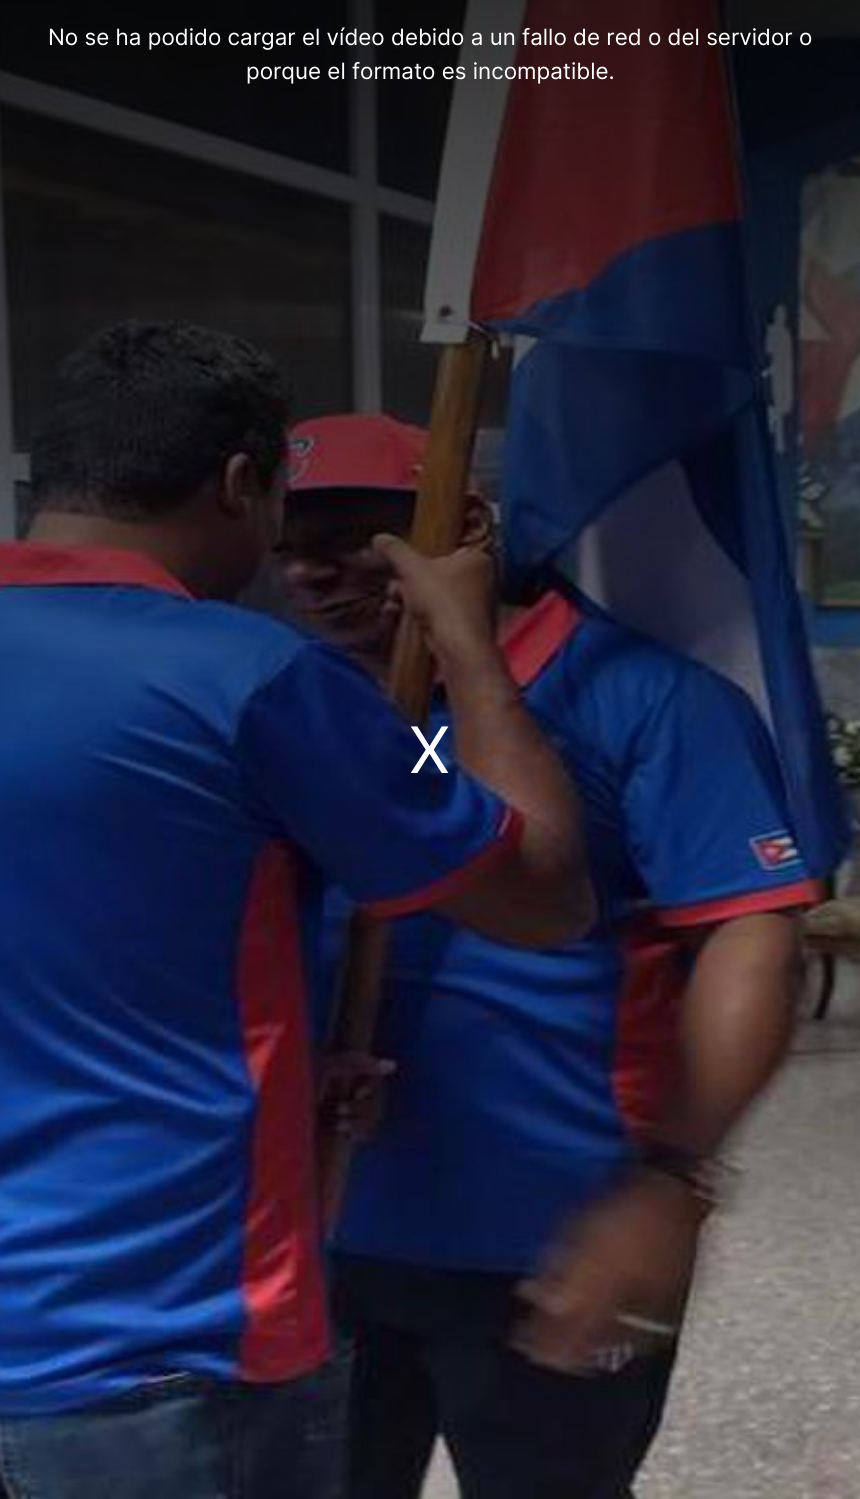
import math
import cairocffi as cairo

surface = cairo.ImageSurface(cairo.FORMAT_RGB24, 860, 1499)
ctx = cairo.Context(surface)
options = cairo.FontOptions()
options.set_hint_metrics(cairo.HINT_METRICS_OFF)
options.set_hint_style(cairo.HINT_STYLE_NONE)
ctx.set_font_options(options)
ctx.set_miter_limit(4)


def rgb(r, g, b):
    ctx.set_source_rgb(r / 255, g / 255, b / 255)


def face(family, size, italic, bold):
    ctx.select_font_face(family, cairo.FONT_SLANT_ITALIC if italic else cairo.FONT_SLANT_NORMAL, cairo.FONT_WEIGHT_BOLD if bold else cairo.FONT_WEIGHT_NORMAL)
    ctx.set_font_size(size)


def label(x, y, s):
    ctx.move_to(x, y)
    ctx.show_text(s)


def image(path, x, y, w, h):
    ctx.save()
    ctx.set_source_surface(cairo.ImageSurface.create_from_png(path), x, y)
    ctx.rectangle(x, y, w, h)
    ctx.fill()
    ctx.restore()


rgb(255, 255, 255)
ctx.paint()
image('image0.png', 0, 0, 860, 1499)
face('Inter', 22.4, 0, 0)
rgb(255, 255, 255)
label(48, 45, 'No se ha podido cargar el vídeo debido a un fallo de red o del servidor o')
label(246, 79, 'porque el formato es incompatible.')
face('Inter', 64, 0, 0)
label(409, 773, 'X')
surface.write_to_png('render.png')
